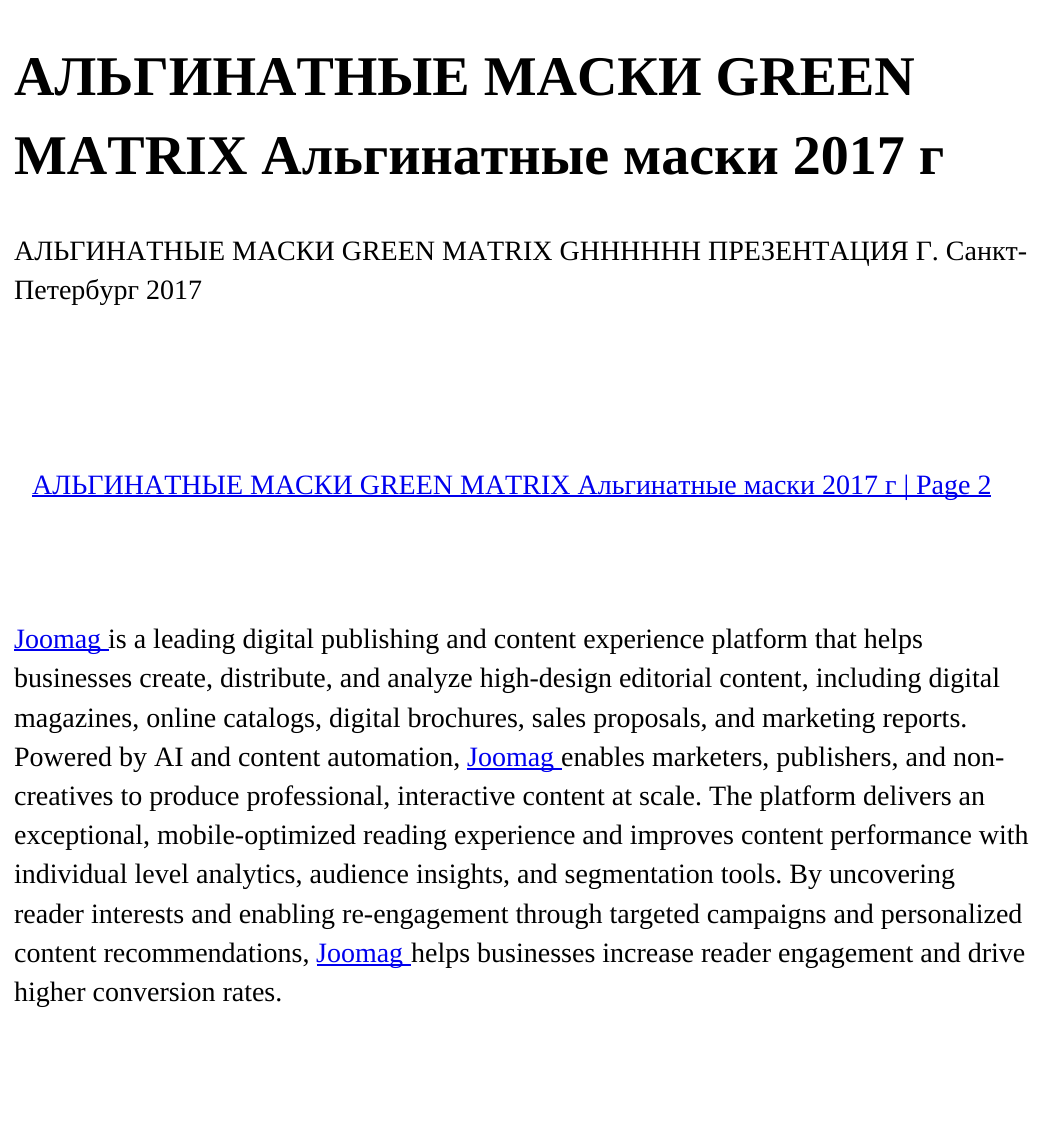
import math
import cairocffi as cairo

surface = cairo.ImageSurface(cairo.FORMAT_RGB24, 1043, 1128)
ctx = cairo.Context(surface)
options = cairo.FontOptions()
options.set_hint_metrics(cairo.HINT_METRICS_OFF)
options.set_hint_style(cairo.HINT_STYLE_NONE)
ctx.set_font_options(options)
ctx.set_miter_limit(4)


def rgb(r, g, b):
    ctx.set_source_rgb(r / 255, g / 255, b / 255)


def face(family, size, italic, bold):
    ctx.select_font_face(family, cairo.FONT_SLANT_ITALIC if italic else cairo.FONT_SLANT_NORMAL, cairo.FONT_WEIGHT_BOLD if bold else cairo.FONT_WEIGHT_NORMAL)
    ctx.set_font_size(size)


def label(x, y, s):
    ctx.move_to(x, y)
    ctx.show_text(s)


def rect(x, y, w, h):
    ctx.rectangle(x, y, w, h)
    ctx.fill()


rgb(255, 255, 255)
ctx.paint()
face('Liberation Serif', 56, 0, 1)
rgb(0, 0, 0)
label(14, 95, 'АЛЬГИНАТНЫЕ МАСКИ GREEN')
label(14, 174, 'MATRIX Альгинатные маски 2017 г')
face('Liberation Serif', 28, 0, 0)
label(14, 260, 'АЛЬГИНАТНЫЕ МАСКИ GREEN MATRIX GHHHHHH ПРЕЗЕНТАЦИЯ Г. Санкт-')
label(14, 299, 'Петербург 2017')
rgb(0, 0, 238)
rect(32, 495, 959, 2)
label(32, 494, 'АЛЬГИНАТНЫЕ МАСКИ GREEN MATRIX Альгинатные маски 2017 г | Page 2')
rect(14, 649, 95, 2)
label(14, 648, 'Joomag')
rgb(0, 0, 0)
label(108, 648, 'is a leading digital publishing and content experience platform that helps')
label(14, 687, 'businesses create, distribute, and analyze high-design editorial content, including digital')
label(14, 727, 'magazines, online catalogs, digital brochures, sales proposals, and marketing reports.')
label(14, 766, 'Powered by AI and content automation,')
rgb(0, 0, 238)
rect(467, 768, 95, 2)
label(467, 766, 'Joomag')
rgb(0, 0, 0)
label(561, 766, 'enables marketers, publishers, and non-')
label(14, 805, 'creatives to produce professional, interactive content at scale. The platform delivers an')
label(14, 844, 'exceptional, mobile-optimized reading experience and improves content performance with')
label(14, 883, 'individual level analytics, audience insights, and segmentation tools. By uncovering')
label(14, 923, 'reader interests and enabling re-engagement through targeted campaigns and personalized')
label(14, 962, 'content recommendations,')
rgb(0, 0, 238)
rect(317, 964, 94, 2)
label(316, 962, 'Joomag')
rgb(0, 0, 0)
label(411, 962, 'helps businesses increase reader engagement and drive')
label(14, 1001, 'higher conversion rates.')
surface.write_to_png('render.png')
